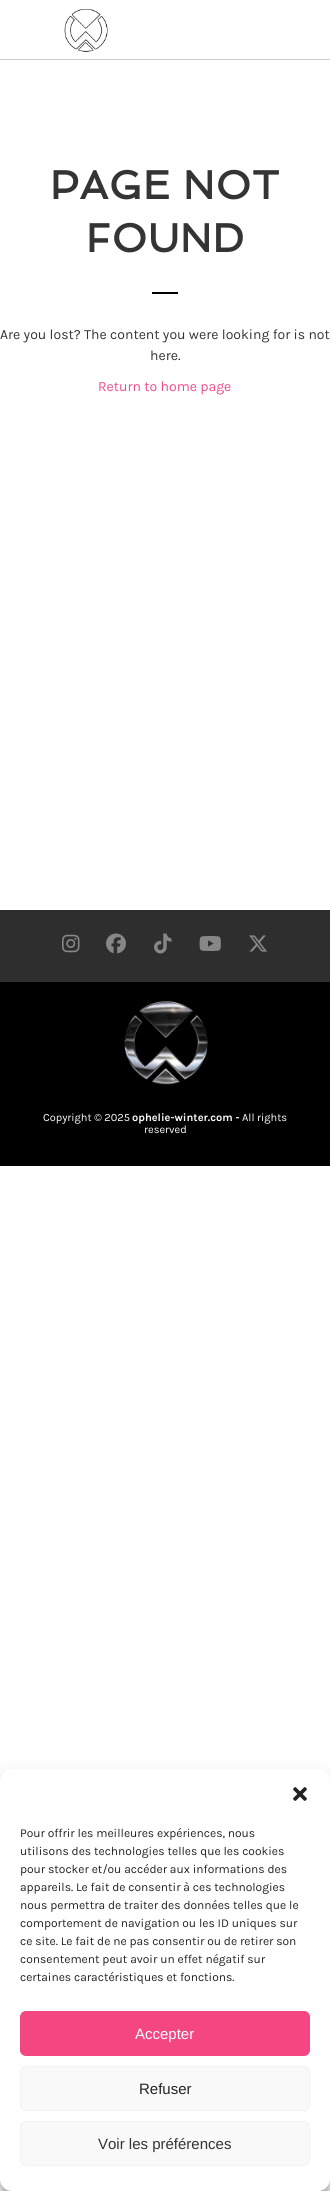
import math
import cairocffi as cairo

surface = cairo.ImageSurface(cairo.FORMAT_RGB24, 330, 2191)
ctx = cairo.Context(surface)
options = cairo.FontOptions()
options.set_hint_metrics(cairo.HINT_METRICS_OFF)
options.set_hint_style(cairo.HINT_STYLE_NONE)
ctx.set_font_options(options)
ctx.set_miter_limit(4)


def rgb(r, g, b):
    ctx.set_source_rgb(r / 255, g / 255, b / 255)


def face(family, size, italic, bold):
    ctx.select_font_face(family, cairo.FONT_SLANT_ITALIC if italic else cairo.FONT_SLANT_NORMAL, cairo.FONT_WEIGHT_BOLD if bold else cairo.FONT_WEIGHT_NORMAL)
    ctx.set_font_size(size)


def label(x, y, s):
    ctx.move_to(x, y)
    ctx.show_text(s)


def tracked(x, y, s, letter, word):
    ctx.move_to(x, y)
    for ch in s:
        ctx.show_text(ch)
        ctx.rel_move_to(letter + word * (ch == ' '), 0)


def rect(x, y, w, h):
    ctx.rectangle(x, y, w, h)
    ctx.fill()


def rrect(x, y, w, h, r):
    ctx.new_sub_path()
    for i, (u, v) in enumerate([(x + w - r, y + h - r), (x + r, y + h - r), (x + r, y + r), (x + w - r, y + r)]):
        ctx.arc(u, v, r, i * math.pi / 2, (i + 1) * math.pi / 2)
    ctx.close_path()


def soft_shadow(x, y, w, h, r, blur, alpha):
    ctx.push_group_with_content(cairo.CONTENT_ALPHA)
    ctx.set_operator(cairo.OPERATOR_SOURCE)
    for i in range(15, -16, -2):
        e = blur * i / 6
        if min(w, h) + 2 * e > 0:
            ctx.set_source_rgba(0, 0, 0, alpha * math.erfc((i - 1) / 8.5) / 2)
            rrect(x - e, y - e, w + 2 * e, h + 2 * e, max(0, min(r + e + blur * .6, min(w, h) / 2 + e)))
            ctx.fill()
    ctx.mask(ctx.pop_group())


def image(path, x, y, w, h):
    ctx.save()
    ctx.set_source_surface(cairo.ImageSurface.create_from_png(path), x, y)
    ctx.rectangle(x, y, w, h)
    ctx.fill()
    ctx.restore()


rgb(255, 255, 255)
ctx.paint()
image('image0.png', 64, 9, 44, 43)
rgb(204, 204, 204)
rect(0, 59, 330, 1)
face('Spinnaker', 40, 0, 1)
rgb(52, 52, 52)
tracked(50, 199, 'PAGE NOT', 1, 0)
tracked(86, 252, 'FOUND', 1, 0)
rgb(0, 0, 0)
rect(152, 292, 26, 2)
face('Karla', 14, 0, 0)
rgb(52, 52, 52)
label(0, 339, 'Are you lost? The content you were looking for is not')
label(150, 360, 'here.')
rgb(239, 76, 131)
label(98, 391, 'Return to home page')
rgb(0, 0, 0)
rect(0, 982, 330, 184)
rgb(46, 46, 46)
rect(0, 910, 330, 72)
image('image1.png', 62, 934, 18, 19)
image('image2.png', 106, 933, 20, 21)
image('image3.png', 154, 933, 18, 21)
image('image4.png', 199, 936, 22, 15)
image('image5.png', 249, 935, 18, 17)
image('image6.png', 124, 1000, 84, 85)
face('Karla', 11, 0, 0)
rgb(255, 255, 255)
label(43, 1121, 'Copyright © 2025')
face('Karla', 11, 0, 1)
label(132, 1121, 'ophelie-winter.com -')
face('Karla', 11, 0, 0)
label(242, 1121, 'All rights')
label(144, 1133, 'reserved')
rgb(0, 0, 0)
soft_shadow(0, 1775, 330, 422, 12, 3, 0.23)
soft_shadow(0, 1779, 330, 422, 12, 10, 0.19)
rgb(255, 255, 255)
rrect(0, 1769, 330, 422, 12)
ctx.fill()
image('image7.png', 293, 1787, 14, 14)
face('Karla', 12, 0, 0)
rgb(34, 34, 34)
label(20, 1837, 'Pour offrir les meilleures expériences, nous')
label(20, 1855, 'utilisons des technologies telles que les cookies')
label(20, 1873, 'pour stocker et/ou accéder aux informations des')
label(20, 1891, 'appareils. Le fait de consentir à ces technologies')
label(20, 1909, 'nous permettra de traiter des données telles que le')
label(20, 1927, 'comportement de navigation ou les ID uniques sur')
label(20, 1945, 'ce site. Le fait de ne pas consentir ou de retirer son')
label(20, 1963, 'consentement peut avoir un effet négatif sur')
label(20, 1981, 'certaines caractéristiques et fonctions.')
rgb(244, 71, 129)
rrect(20.5, 2011.5, 289, 44, 5.5)
ctx.fill_preserve()
ctx.set_line_width(1)
ctx.stroke()
face('Liberation Sans', 15, 0, 0)
rgb(255, 255, 255)
label(135, 2039, 'Accepter')
rgb(249, 249, 249)
rrect(20.5, 2066.5, 289, 44, 5.5)
ctx.fill_preserve()
rgb(242, 242, 242)
ctx.stroke()
rgb(34, 34, 34)
label(139, 2094, 'Refuser')
rgb(249, 249, 249)
rrect(20.5, 2121.5, 289, 44, 5.5)
ctx.fill_preserve()
rgb(242, 242, 242)
ctx.stroke()
rgb(52, 52, 52)
label(98, 2149, 'Voir les préférences')
surface.write_to_png('render.png')
